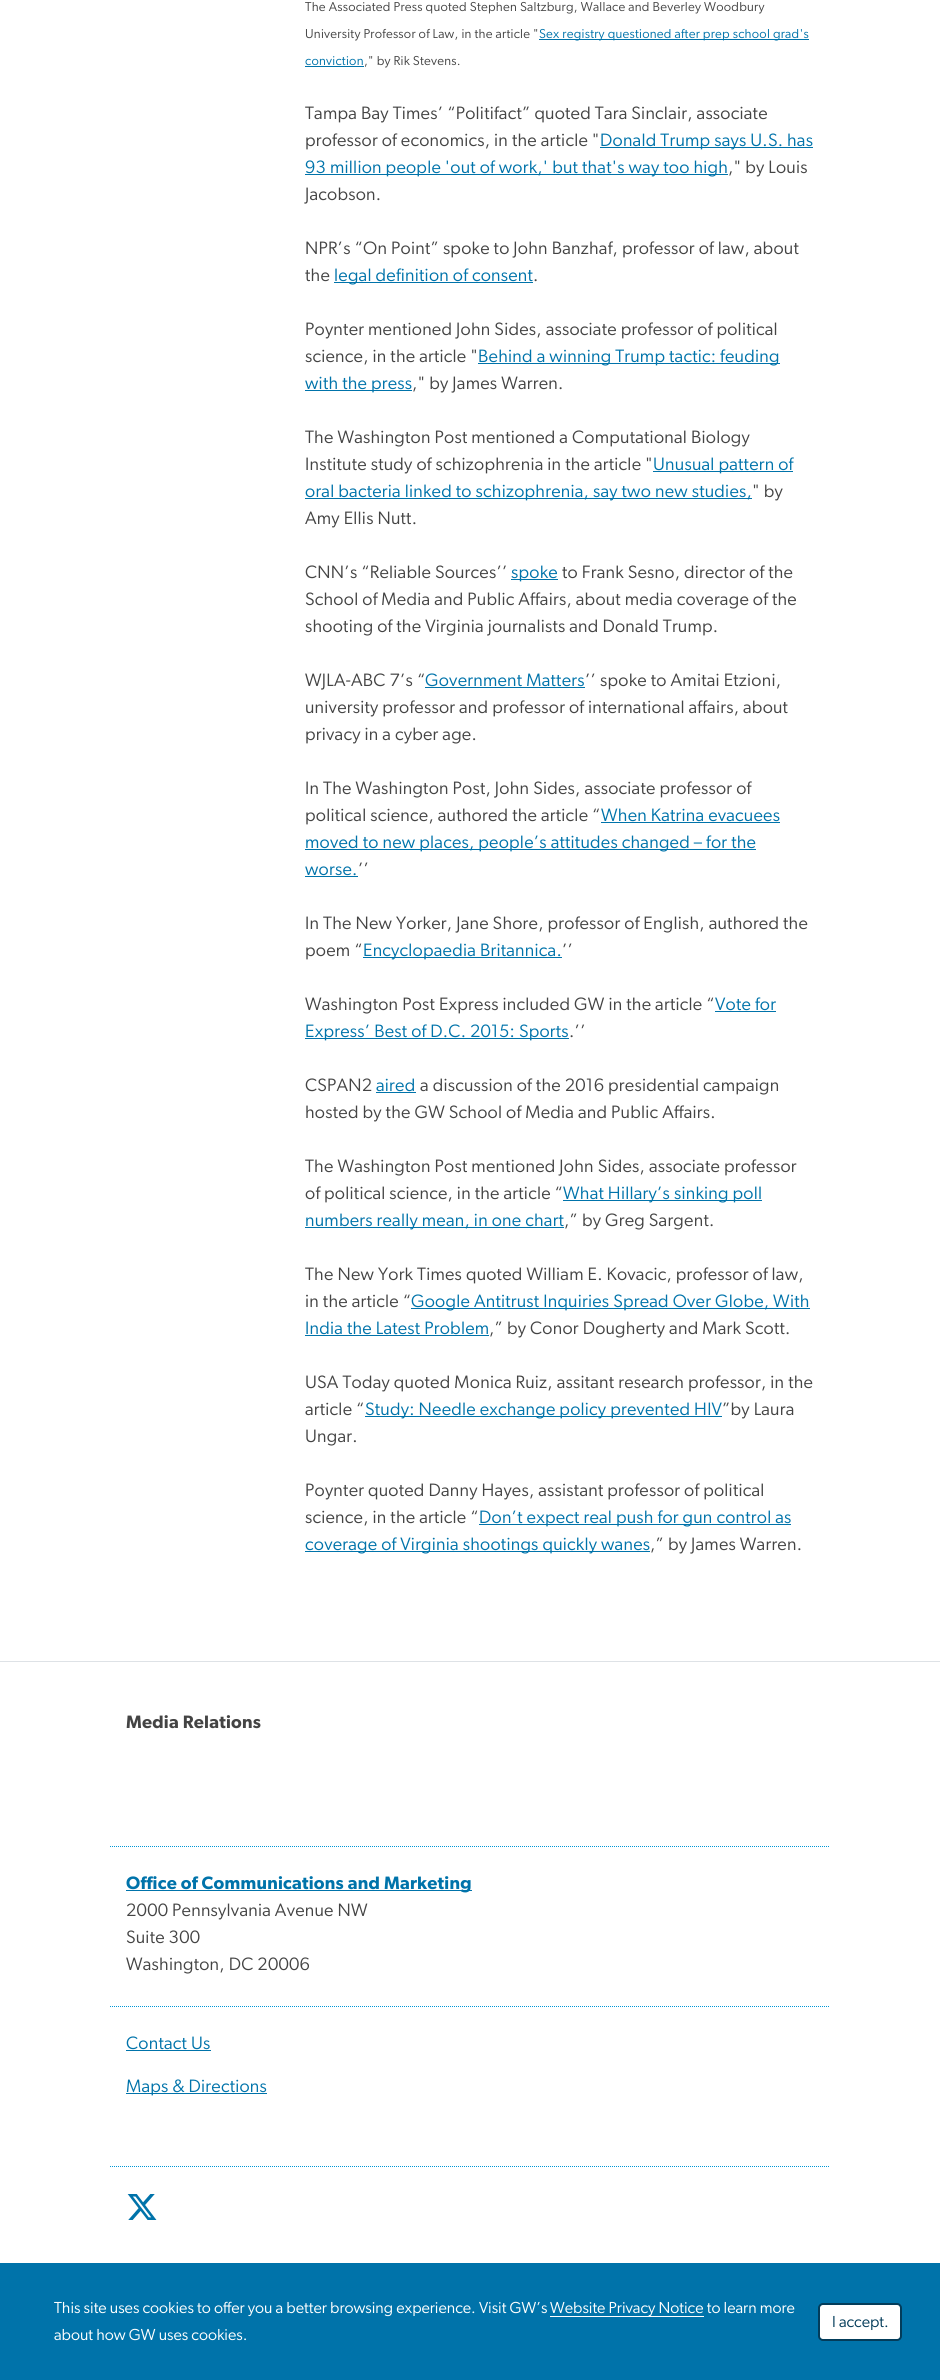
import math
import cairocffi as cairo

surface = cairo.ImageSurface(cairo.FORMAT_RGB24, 940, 2380)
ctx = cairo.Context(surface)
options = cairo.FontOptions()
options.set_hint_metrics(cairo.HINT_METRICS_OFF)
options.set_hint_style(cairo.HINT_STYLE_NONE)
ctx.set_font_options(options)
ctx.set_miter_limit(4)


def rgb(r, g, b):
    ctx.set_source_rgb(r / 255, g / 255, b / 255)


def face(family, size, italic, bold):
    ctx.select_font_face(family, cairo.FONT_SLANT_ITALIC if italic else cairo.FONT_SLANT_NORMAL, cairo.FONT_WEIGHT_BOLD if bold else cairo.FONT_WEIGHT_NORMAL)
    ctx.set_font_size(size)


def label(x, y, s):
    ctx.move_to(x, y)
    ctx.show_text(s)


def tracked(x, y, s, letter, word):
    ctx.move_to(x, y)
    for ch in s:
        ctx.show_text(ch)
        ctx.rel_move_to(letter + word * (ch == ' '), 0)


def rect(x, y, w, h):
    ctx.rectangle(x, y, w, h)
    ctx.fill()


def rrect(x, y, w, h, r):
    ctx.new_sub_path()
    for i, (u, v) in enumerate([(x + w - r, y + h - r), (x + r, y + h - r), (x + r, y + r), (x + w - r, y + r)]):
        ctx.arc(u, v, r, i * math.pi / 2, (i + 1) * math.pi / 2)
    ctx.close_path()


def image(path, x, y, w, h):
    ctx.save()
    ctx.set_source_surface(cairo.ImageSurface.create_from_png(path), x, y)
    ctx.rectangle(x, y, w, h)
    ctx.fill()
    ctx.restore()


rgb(255, 255, 255)
ctx.paint()
face('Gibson', 13, 0, 0)
rgb(68, 68, 68)
tracked(305, 11, 'The Associated Press quoted Stephen Saltzburg, Wallace and Beverley Woodbury', 0.25, 0)
tracked(305, 38, 'University Professor of Law, in the article "', 0.25, 0)
rgb(0, 115, 170)
rect(539, 39, 270, 1)
tracked(539, 38, 'Sex registry questioned after prep school grad\'s', 0.25, 0)
tracked(305, 65, 'conviction', 0.25, 0)
rect(305, 66, 59, 1)
rgb(68, 68, 68)
tracked(364, 65, '," by Rik Stevens.', 0.25, 0)
face('Gibson', 18, 0, 0)
tracked(305, 119, 'Tampa Bay Times’ “Politifact” quoted Tara Sinclair, associate', 0.25, 0)
tracked(305, 146, 'professor of economics, in the article "', 0.25, 0)
rgb(0, 115, 170)
rect(600, 147, 213, 1)
tracked(600, 146, 'Donald Trump says U.S. has', 0.25, 0)
rect(305, 174, 423, 1)
tracked(305, 173, '93 million people \'out of work,\' but that\'s way too high', 0.25, 0)
rgb(68, 68, 68)
tracked(728, 173, '," by Louis', 0.25, 0)
tracked(305, 200, 'Jacobson.', 0.25, 0)
tracked(305, 254, 'NPR’s “On Point” spoke to John Banzhaf, professor of law, about', 0.25, 0)
tracked(305, 281, 'the', 0.25, 0)
rgb(0, 115, 170)
rect(334, 282, 199, 1)
tracked(334, 281, 'legal definition of consent', 0.25, 0)
rgb(68, 68, 68)
tracked(533, 281, '.', 0.25, 0)
tracked(305, 335, 'Poynter mentioned John Sides, associate professor of political', 0.25, 0)
tracked(305, 362, 'science, in the article "', 0.25, 0)
rgb(0, 115, 170)
rect(478, 363, 302, 1)
tracked(478, 362, 'Behind a winning Trump tactic: feuding', 0.25, 0)
rect(305, 390, 107, 1)
tracked(305, 389, 'with the press', 0.25, 0)
rgb(68, 68, 68)
tracked(412, 389, '," by James Warren.', 0.25, 0)
tracked(305, 443, 'The Washington Post mentioned a Computational Biology', 0.25, 0)
tracked(305, 470, 'Institute study of schizophrenia in the article "', 0.25, 0)
rgb(0, 115, 170)
rect(653, 471, 140, 1)
tracked(653, 470, 'Unusual pattern of', 0.25, 0)
rect(305, 498, 447, 1)
tracked(305, 497, 'oral bacteria linked to schizophrenia, say two new studies,', 0.25, 0)
rgb(68, 68, 68)
tracked(752, 497, '" by', 0.25, 0)
tracked(305, 524, 'Amy Ellis Nutt.', 0.25, 0)
tracked(305, 578, 'CNN’s “Reliable Sources’’', 0.25, 0)
rgb(0, 115, 170)
rect(511, 579, 47, 1)
tracked(511, 578, 'spoke', 0.25, 0)
rgb(68, 68, 68)
tracked(562, 578, 'to Frank Sesno, director of the', 0.25, 0)
tracked(305, 605, 'School of Media and Public Affairs, about media coverage of the', 0.25, 0)
tracked(305, 632, 'shooting of the Virginia journalists and Donald Trump.', 0.25, 0)
tracked(305, 686, 'WJLA-ABC 7’s “', 0.25, 0)
rgb(0, 115, 170)
tracked(425, 686, 'Government Matters', 0.25, 0)
rect(425, 687, 160, 1)
rgb(68, 68, 68)
tracked(585, 686, '’’ spoke to Amitai Etzioni,', 0.25, 0)
tracked(305, 713, 'university professor and professor of international affairs, about', 0.25, 0)
tracked(305, 740, 'privacy in a cyber age.', 0.25, 0)
tracked(305, 794, 'In The Washington Post, John Sides, associate professor of', 0.25, 0)
tracked(305, 821, 'political science, authored the article “', 0.25, 0)
rgb(0, 115, 170)
tracked(601, 821, 'When Katrina evacuees', 0.25, 0)
rect(601, 822, 179, 1)
rect(305, 849, 451, 1)
tracked(305, 848, 'moved to new places, people’s attitudes changed – for the', 0.25, 0)
rgb(68, 68, 68)
tracked(358, 875, '’’', 0.25, 0)
rgb(0, 115, 170)
tracked(305, 875, 'worse.', 0.25, 0)
rect(305, 876, 53, 1)
rgb(68, 68, 68)
tracked(305, 929, 'In The New Yorker, Jane Shore, professor of English, authored the', 0.25, 0)
tracked(305, 956, 'poem “', 0.25, 0)
rgb(0, 115, 170)
rect(363, 957, 199, 1)
tracked(363, 956, 'Encyclopaedia Britannica.', 0.25, 0)
rgb(68, 68, 68)
tracked(562, 956, '’’', 0.25, 0)
tracked(305, 1010, 'Washington Post Express included GW in the article “', 0.25, 0)
rgb(0, 115, 170)
tracked(715, 1010, 'Vote for', 0.25, 0)
rect(715, 1011, 61, 1)
rect(305, 1038, 264, 1)
tracked(305, 1037, 'Express’ Best of D.C. 2015: Sports', 0.25, 0)
rgb(68, 68, 68)
tracked(569, 1037, '.’’', 0.25, 0)
tracked(305, 1091, 'CSPAN2', 0.25, 0)
rgb(0, 115, 170)
tracked(376, 1091, 'aired', 0.25, 0)
rect(376, 1092, 40, 1)
rgb(68, 68, 68)
tracked(420, 1091, 'a discussion of the 2016 presidential campaign', 0.25, 0)
tracked(305, 1118, 'hosted by the GW School of Media and Public Affairs.', 0.25, 0)
tracked(305, 1172, 'The Washington Post mentioned John Sides, associate professor', 0.25, 0)
tracked(305, 1199, 'of political science, in the article “', 0.25, 0)
rgb(0, 115, 170)
rect(563, 1200, 199, 1)
tracked(563, 1199, 'What Hillary’s sinking poll', 0.25, 0)
rect(305, 1227, 259, 1)
tracked(305, 1226, 'numbers really mean, in one chart', 0.25, 0)
rgb(68, 68, 68)
tracked(564, 1226, ',” by Greg Sargent.', 0.25, 0)
tracked(305, 1280, 'The New York Times quoted William E. Kovacic, professor of law,', 0.25, 0)
tracked(305, 1307, 'in the article “', 0.25, 0)
rgb(0, 115, 170)
rect(411, 1308, 399, 1)
tracked(411, 1307, 'Google Antitrust Inquiries Spread Over Globe, With', 0.25, 0)
tracked(305, 1334, 'India the Latest Problem', 0.25, 0)
rect(305, 1335, 184, 1)
rgb(68, 68, 68)
tracked(489, 1334, ',” by Conor Dougherty and Mark Scott.', 0.25, 0)
tracked(305, 1388, 'USA Today quoted Monica Ruiz, assitant research professor, in the', 0.25, 0)
tracked(305, 1415, 'article “', 0.25, 0)
rgb(0, 115, 170)
rect(365, 1416, 357, 1)
tracked(365, 1415, 'Study: Needle exchange policy prevented HIV', 0.25, 0)
rgb(68, 68, 68)
tracked(722, 1415, '”by Laura', 0.25, 0)
tracked(305, 1442, 'Ungar.', 0.25, 0)
tracked(305, 1496, 'Poynter quoted Danny Hayes, assistant professor of political', 0.25, 0)
tracked(305, 1523, 'science, in the article “', 0.25, 0)
rgb(0, 115, 170)
rect(479, 1524, 312, 1)
tracked(479, 1523, 'Don’t expect real push for gun control as', 0.25, 0)
rect(305, 1551, 345, 1)
tracked(305, 1550, 'coverage of Virginia shootings quickly wanes', 0.25, 0)
rgb(68, 68, 68)
tracked(650, 1550, ',” by James Warren.', 0.25, 0)
rgb(222, 226, 230)
rect(0, 1661, 940, 1)
face('Gibson SemiBold', 18, 0, 0)
rgb(68, 68, 68)
tracked(126, 1728, 'Media Relations', 0.25, 0)
ctx.new_path()
ctx.move_to(110, 1846.5)
ctx.line_to(830, 1846.5)
rgb(0, 150, 214)
ctx.set_line_width(1)
ctx.set_dash([1, 1])
ctx.stroke()
rgb(0, 115, 170)
rect(126, 1890, 346, 1)
tracked(126, 1889, 'Office of Communications and Marketing', 0.25, 0)
face('Gibson', 18, 0, 0)
rgb(68, 68, 68)
tracked(126, 1916, '2000 Pennsylvania Avenue NW', 0.25, 0)
tracked(126, 1943, 'Suite 300', 0.25, 0)
tracked(126, 1970, 'Washington, DC 20006', 0.25, 0)
ctx.new_path()
ctx.move_to(110, 2006.5)
ctx.line_to(830, 2006.5)
rgb(0, 150, 214)
ctx.stroke()
rgb(0, 115, 170)
tracked(126, 2049, 'Contact Us', 0.25, 0)
rect(126, 2050, 85, 1)
rect(126, 2093, 141, 1)
tracked(126, 2092, 'Maps & Directions', 0.25, 0)
ctx.new_path()
ctx.move_to(110, 2166.5)
ctx.line_to(830, 2166.5)
rgb(0, 150, 214)
ctx.stroke()
image('image0.png', 127, 2194, 30, 26)
rgb(0, 115, 170)
rect(0, 2263, 940, 117)
face('Gibson', 16, 0, 0)
rgb(255, 255, 255)
label(54, 2313, 'This site uses cookies to offer you a better browsing experience. Visit GW’s')
rect(550, 2316, 154, 1)
label(550, 2313, 'Website Privacy Notice to learn more')
label(54, 2340, 'about how GW uses cookies.')
rrect(819, 2304, 82, 36, 4)
ctx.fill_preserve()
rgb(3, 60, 90)
ctx.set_line_width(2)
ctx.set_dash([])
ctx.stroke()
label(832, 2327, 'I accept.')
surface.write_to_png('render.png')
